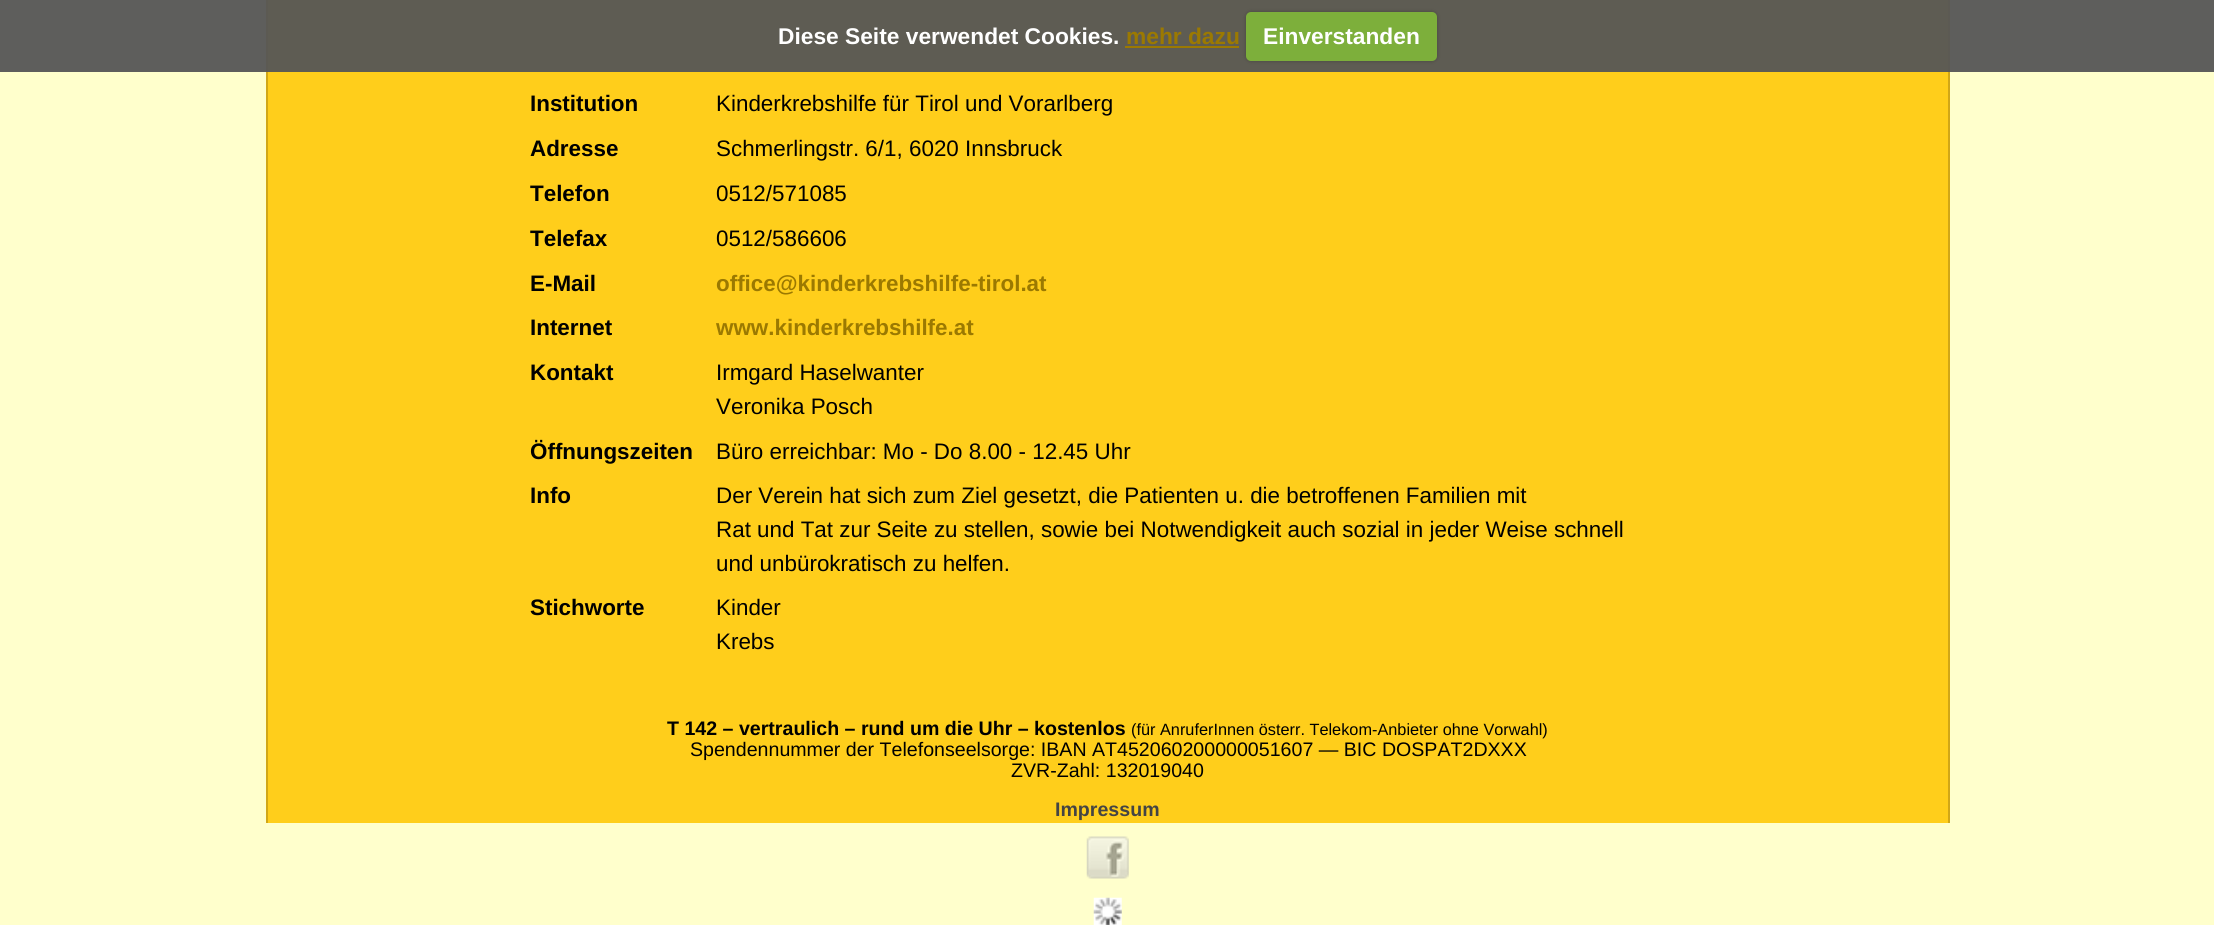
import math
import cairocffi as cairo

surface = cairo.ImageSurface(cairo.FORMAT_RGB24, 2214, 925)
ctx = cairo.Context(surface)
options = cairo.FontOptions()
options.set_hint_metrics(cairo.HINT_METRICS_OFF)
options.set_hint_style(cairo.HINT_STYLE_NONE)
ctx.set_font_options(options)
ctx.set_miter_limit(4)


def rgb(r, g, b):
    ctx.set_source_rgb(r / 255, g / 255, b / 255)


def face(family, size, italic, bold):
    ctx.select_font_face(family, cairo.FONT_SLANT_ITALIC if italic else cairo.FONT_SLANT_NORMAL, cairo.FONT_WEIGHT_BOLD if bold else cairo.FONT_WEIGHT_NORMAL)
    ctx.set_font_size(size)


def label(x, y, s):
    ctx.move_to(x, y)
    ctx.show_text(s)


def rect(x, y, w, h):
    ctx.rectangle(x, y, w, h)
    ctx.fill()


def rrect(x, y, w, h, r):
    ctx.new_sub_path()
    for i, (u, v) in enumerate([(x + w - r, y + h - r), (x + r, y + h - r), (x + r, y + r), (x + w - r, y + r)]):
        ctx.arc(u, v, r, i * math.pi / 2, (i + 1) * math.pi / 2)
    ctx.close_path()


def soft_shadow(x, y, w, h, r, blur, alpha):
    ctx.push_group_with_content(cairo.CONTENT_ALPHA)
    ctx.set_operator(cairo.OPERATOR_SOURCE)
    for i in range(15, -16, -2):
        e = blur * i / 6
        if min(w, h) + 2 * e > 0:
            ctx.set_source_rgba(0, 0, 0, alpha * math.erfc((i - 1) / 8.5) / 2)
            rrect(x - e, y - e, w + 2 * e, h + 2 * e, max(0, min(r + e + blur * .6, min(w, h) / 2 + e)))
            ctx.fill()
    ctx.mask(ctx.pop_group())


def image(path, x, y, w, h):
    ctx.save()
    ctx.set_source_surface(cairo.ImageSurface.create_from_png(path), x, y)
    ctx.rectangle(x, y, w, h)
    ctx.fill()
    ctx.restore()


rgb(255, 255, 204)
ctx.paint()
rgb(94, 94, 92)
rect(0, 0, 2214, 72)
rgb(94, 92, 83)
rect(268, 0, 1680, 72)
face('Liberation Sans', 22.75, 0, 1)
rgb(255, 255, 255)
label(778, 44, 'Diese Seite verwendet Cookies.')
rgb(155, 121, 1)
label(1126, 44, 'mehr dazu')
rect(1125, 46, 114, 2)
rgb(0, 0, 0)
soft_shadow(1246, 12, 191, 49, 5, 2, 0.25)
rgb(125, 175, 59)
rrect(1246, 12, 191, 49, 5)
ctx.fill()
rgb(255, 255, 255)
label(1263, 44, 'Einverstanden')
rgb(255, 206, 27)
rect(268, 72, 1680, 751)
rgb(209, 167, 23)
rect(1948, 72, 2, 751)
rgb(92, 90, 83)
rect(1948, 0, 2, 72)
rgb(209, 167, 23)
rect(266, 72, 2, 751)
rgb(92, 90, 83)
rect(266, 0, 2, 72)
face('Liberation Sans', 22.4, 0, 1)
rgb(0, 0, 0)
label(530, 111, 'Institution')
face('Liberation Sans', 22.4, 0, 0)
label(716, 111, 'Kinderkrebshilfe für Tirol und Vorarlberg')
face('Liberation Sans', 22.4, 0, 1)
label(530, 156, 'Adresse')
face('Liberation Sans', 22.4, 0, 0)
label(716, 156, 'Schmerlingstr. 6/1, 6020 Innsbruck')
face('Liberation Sans', 22.4, 0, 1)
label(530, 201, 'Telefon')
face('Liberation Sans', 22.4, 0, 0)
label(716, 201, '0512/571085')
face('Liberation Sans', 22.4, 0, 1)
label(530, 246, 'Telefax')
face('Liberation Sans', 22.4, 0, 0)
label(716, 246, '0512/586606')
face('Liberation Sans', 22.4, 0, 1)
label(530, 291, 'E-Mail')
rgb(155, 121, 1)
label(716, 291, 'office@kinderkrebshilfe-tirol.at')
rgb(0, 0, 0)
label(530, 335, 'Internet')
rgb(155, 121, 1)
label(716, 335, 'www.kinderkrebshilfe.at')
rgb(0, 0, 0)
label(530, 380, 'Kontakt')
face('Liberation Sans', 22.4, 0, 0)
label(716, 380, 'Irmgard Haselwanter')
label(716, 414, 'Veronika Posch')
face('Liberation Sans', 22.4, 0, 1)
label(530, 459, 'Öffnungszeiten')
face('Liberation Sans', 22.4, 0, 0)
label(716, 459, 'Büro erreichbar: Mo - Do 8.00 - 12.45 Uhr')
face('Liberation Sans', 22.4, 0, 1)
label(530, 503, 'Info')
face('Liberation Sans', 22.4, 0, 0)
label(716, 503, 'Der Verein hat sich zum Ziel gesetzt, die Patienten u. die betroffenen Familien mit')
label(716, 537, 'Rat und Tat zur Seite zu stellen, sowie bei Notwendigkeit auch sozial in jeder Weise schnell')
label(716, 571, 'und unbürokratisch zu helfen.')
face('Liberation Sans', 22.4, 0, 1)
label(530, 615, 'Stichworte')
face('Liberation Sans', 22.4, 0, 0)
label(716, 615, 'Kinder')
label(716, 649, 'Krebs')
face('Liberation Sans', 19.6, 0, 1)
label(667, 735, 'T 142 – vertraulich – rund um die Uhr – kostenlos')
face('Liberation Sans', 16.3, 0, 0)
label(1131, 735, '(für AnruferInnen österr. Telekom-Anbieter ohne Vorwahl)')
face('Liberation Sans', 19.6, 0, 0)
label(690, 756, 'Spendennummer der Telefonseelsorge: IBAN AT452060200000051607 — BIC DOSPAT2DXXX')
label(1011, 777, 'ZVR-Zahl: 132019040')
face('Liberation Sans', 19.6, 0, 1)
rgb(68, 68, 68)
label(1055, 816, 'Impressum')
image('image0.png', 1086, 836, 43, 43)
image('image1.png', 1093, 897, 29, 28)
surface.write_to_png('render.png')
